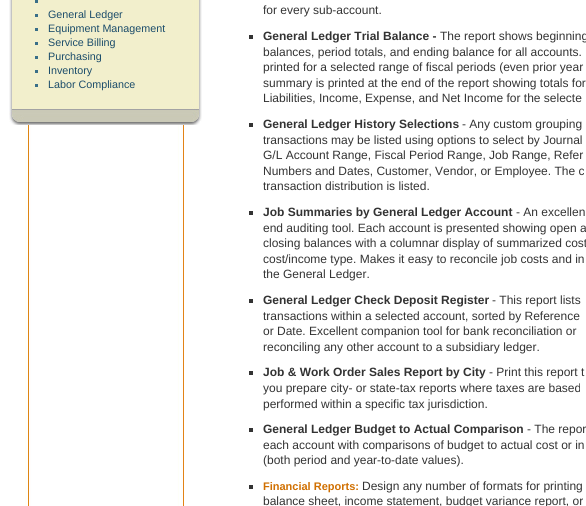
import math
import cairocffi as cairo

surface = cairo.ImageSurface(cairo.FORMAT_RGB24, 586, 506)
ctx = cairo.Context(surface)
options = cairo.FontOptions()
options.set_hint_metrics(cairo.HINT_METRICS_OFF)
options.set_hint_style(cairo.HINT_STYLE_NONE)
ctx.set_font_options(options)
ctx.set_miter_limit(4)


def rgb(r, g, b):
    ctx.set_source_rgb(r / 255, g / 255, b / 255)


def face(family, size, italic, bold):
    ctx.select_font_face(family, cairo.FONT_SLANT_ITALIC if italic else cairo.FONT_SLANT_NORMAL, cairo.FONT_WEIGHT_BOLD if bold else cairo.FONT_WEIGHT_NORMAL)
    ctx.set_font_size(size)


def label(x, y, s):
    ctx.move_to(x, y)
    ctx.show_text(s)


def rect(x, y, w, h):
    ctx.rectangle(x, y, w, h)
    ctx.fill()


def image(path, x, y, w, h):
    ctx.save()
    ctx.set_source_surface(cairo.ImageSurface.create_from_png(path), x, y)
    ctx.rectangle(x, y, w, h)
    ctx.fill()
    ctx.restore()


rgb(255, 255, 255)
ctx.paint()
image('image0.png', 25, 125, 159, 381)
image('image1.png', 9, 0, 193, 107)
rgb(57, 110, 136)
rect(35, 0, 3, 3)
rect(35, 14, 3, 3)
face('Liberation Sans', 10.75, 0, 0)
rgb(27, 76, 106)
label(48, 18, 'General Ledger')
rgb(57, 110, 136)
rect(35, 28, 3, 3)
rgb(27, 76, 106)
label(48, 32, 'Equipment Management')
rgb(57, 110, 136)
rect(35, 42, 3, 3)
rgb(27, 76, 106)
label(48, 46, 'Service Billing')
rgb(57, 110, 136)
rect(35, 56, 3, 3)
rgb(27, 76, 106)
label(48, 60, 'Purchasing')
rgb(57, 110, 136)
rect(35, 70, 3, 3)
rgb(27, 76, 106)
label(48, 74, 'Inventory')
rgb(57, 110, 136)
rect(35, 84, 3, 3)
rgb(27, 76, 106)
label(48, 88, 'Labor Compliance')
image('image2.png', 9, 107, 193, 18)
face('Liberation Sans', 12, 0, 0)
rgb(51, 51, 51)
label(263, 14, 'for every sub-account.')
rect(249, 35, 4, 4)
face('Liberation Sans', 12, 0, 1)
label(263, 40, 'General Ledger Trial Balance -')
face('Liberation Sans', 12, 0, 0)
label(440, 40, 'The report shows beginning')
label(263, 56, 'balances, period totals, and ending balance for all accounts.')
label(263, 71, 'printed for a selected range of fiscal periods (even prior year')
label(263, 87, 'summary is printed at the end of the report showing totals for')
label(263, 102, 'Liabilities, Income, Expense, and Net Income for the selecte')
rect(249, 123, 4, 4)
face('Liberation Sans', 12, 0, 1)
label(263, 128, 'General Ledger History Selections')
face('Liberation Sans', 12, 0, 0)
label(462, 128, '- Any custom grouping')
label(263, 144, 'transactions may be listed using options to select by Journal')
label(263, 159, 'G/L Account Range, Fiscal Period Range, Job Range, Refer')
label(263, 175, 'Numbers and Dates, Customer, Vendor, or Employee. The c')
label(263, 190, 'transaction distribution is listed.')
rect(249, 211, 4, 4)
face('Liberation Sans', 12, 0, 1)
label(263, 216, 'Job Summaries by General Ledger Account')
face('Liberation Sans', 12, 0, 0)
label(516, 216, '- An excellen')
label(263, 232, 'end auditing tool. Each account is presented showing open a')
label(263, 247, 'closing balances with a columnar display of summarized cost')
label(263, 263, 'cost/income type. Makes it easy to reconcile job costs and in')
label(263, 278, 'the General Ledger.')
rect(249, 299, 4, 4)
face('Liberation Sans', 12, 0, 1)
label(263, 304, 'General Ledger Check Deposit Register')
face('Liberation Sans', 12, 0, 0)
label(492, 304, '- This report lists')
label(263, 320, 'transactions within a selected account, sorted by Reference')
label(263, 335, 'or Date. Excellent companion tool for bank reconciliation or')
label(263, 351, 'reconciling any other account to a subsidiary ledger.')
rect(249, 371, 4, 4)
face('Liberation Sans', 12, 0, 1)
label(263, 376, 'Job & Work Order Sales Report by City')
face('Liberation Sans', 12, 0, 0)
label(489, 376, '- Print this report t')
label(263, 392, 'you prepare city- or state-tax reports where taxes are based')
label(263, 408, 'performed within a specific tax jurisdiction.')
rect(249, 428, 4, 4)
face('Liberation Sans', 12, 0, 1)
label(263, 433, 'General Ledger Budget to Actual Comparison')
face('Liberation Sans', 12, 0, 0)
label(527, 433, '- The repor')
label(263, 449, 'each account with comparisons of budget to actual cost or in')
label(263, 464, '(both period and year-to-date values).')
rect(249, 485, 4, 4)
face('Liberation Sans', 11, 0, 1)
rgb(208, 111, 0)
label(263, 490, 'Financial Reports:')
face('Liberation Sans', 12, 0, 0)
rgb(51, 51, 51)
label(362, 490, 'Design any number of formats for printing')
label(263, 505, 'balance sheet, income statement, budget variance report, or')
surface.write_to_png('render.png')
